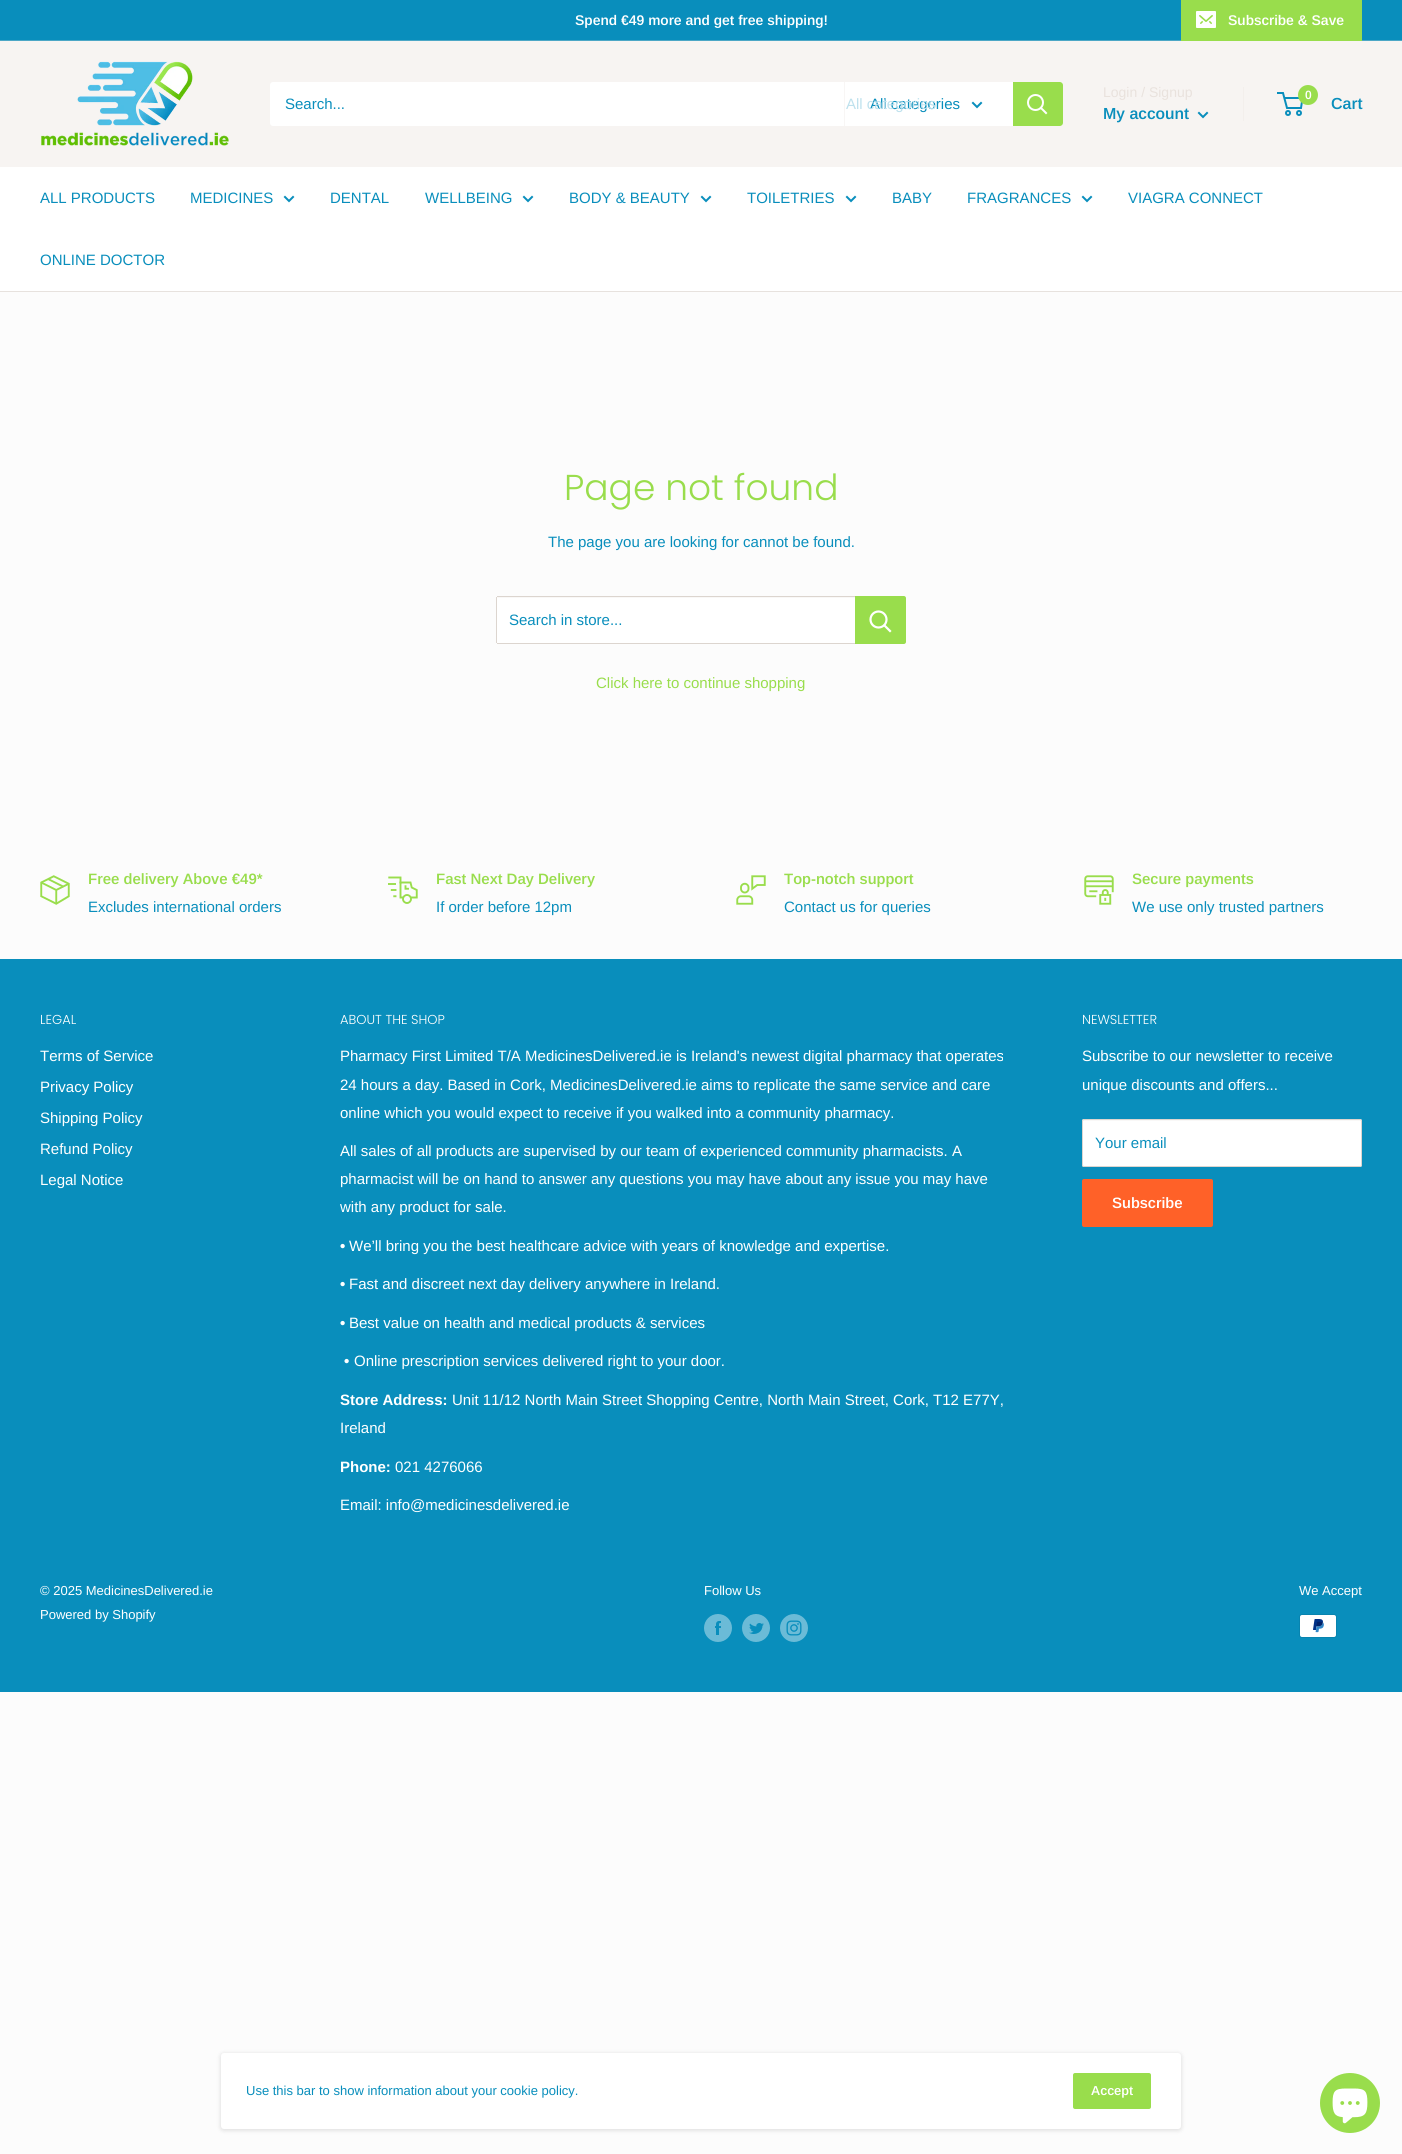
import math
import cairocffi as cairo

surface = cairo.ImageSurface(cairo.FORMAT_RGB24, 1402, 2154)
ctx = cairo.Context(surface)
options = cairo.FontOptions()
options.set_hint_metrics(cairo.HINT_METRICS_OFF)
options.set_hint_style(cairo.HINT_STYLE_NONE)
ctx.set_font_options(options)
ctx.set_miter_limit(4)


def rgb(r, g, b):
    ctx.set_source_rgb(r / 255, g / 255, b / 255)


def face(family, size, italic, bold):
    ctx.select_font_face(family, cairo.FONT_SLANT_ITALIC if italic else cairo.FONT_SLANT_NORMAL, cairo.FONT_WEIGHT_BOLD if bold else cairo.FONT_WEIGHT_NORMAL)
    ctx.set_font_size(size)


def label(x, y, s):
    ctx.move_to(x, y)
    ctx.show_text(s)


def rect(x, y, w, h):
    ctx.rectangle(x, y, w, h)
    ctx.fill()


def rrect(x, y, w, h, r):
    ctx.new_sub_path()
    for i, (u, v) in enumerate([(x + w - r, y + h - r), (x + r, y + h - r), (x + r, y + r), (x + w - r, y + r)]):
        ctx.arc(u, v, r, i * math.pi / 2, (i + 1) * math.pi / 2)
    ctx.close_path()


def soft_shadow(x, y, w, h, r, blur, alpha):
    ctx.push_group_with_content(cairo.CONTENT_ALPHA)
    ctx.set_operator(cairo.OPERATOR_SOURCE)
    for i in range(15, -16, -2):
        e = blur * i / 6
        if min(w, h) + 2 * e > 0:
            ctx.set_source_rgba(0, 0, 0, alpha * math.erfc((i - 1) / 8.5) / 2)
            rrect(x - e, y - e, w + 2 * e, h + 2 * e, max(0, min(r + e + blur * .6, min(w, h) / 2 + e)))
            ctx.fill()
    ctx.mask(ctx.pop_group())


def image(path, x, y, w, h):
    ctx.save()
    ctx.set_source_surface(cairo.ImageSurface.create_from_png(path), x, y)
    ctx.rectangle(x, y, w, h)
    ctx.fill()
    ctx.restore()


rgb(252, 252, 252)
ctx.paint()
rgb(9, 142, 188)
rect(0, 0, 1402, 40)
rgb(76, 167, 198)
rect(0, 40, 1402, 1)
face('Arimo SemiBold', 14, 0, 0)
rgb(255, 255, 255)
label(575, 25, 'Spend €49 more and get free shipping!')
rgb(153, 221, 76)
rect(1181, 0, 181, 41)
image('image0.png', 1196, 11, 20, 17)
rgb(255, 255, 255)
label(1228, 25, 'Subscribe & Save')
rgb(247, 244, 242)
rect(0, 41, 1402, 126)
image('image1.png', 41, 61, 188, 85)
rgb(255, 255, 255)
rrect(270, 82, 793, 44, 3)
ctx.fill()
face('Arimo', 15, 0, 0)
rgb(9, 142, 188)
label(285, 109, 'Search...')
rgb(248, 246, 245)
rect(844, 82, 1, 44)
rgb(9, 142, 188)
label(870, 109, 'All categories')
rgb(190, 225, 237)
label(846, 109, 'All categories')
ctx.new_path()
ctx.move_to(981, 103)
ctx.line_to(977, 107)
ctx.line_to(973, 103)
rgb(9, 142, 188)
ctx.set_line_cap(cairo.LINE_CAP_SQUARE)
ctx.stroke()
rgb(153, 221, 76)
ctx.new_path()
ctx.move_to(1013, 82)
ctx.line_to(1060, 82)
ctx.curve_to(1061.5, 82, 1063, 83.5, 1063, 85)
ctx.line_to(1063, 123)
ctx.curve_to(1063, 124.5, 1061.5, 126, 1060, 126)
ctx.line_to(1013, 126)
ctx.close_path()
ctx.fill()
ctx.new_path()
ctx.move_to(1046, 113)
ctx.line_to(1041, 108)
rgb(255, 255, 255)
ctx.stroke()
ctx.arc(1035.5, 102.5, 7.5, 0, 2 * math.pi)
ctx.set_line_cap(cairo.LINE_CAP_BUTT)
ctx.stroke()
face('Arimo', 14, 0, 0)
rgb(233, 226, 221)
label(1103, 97, 'Login / Signup')
rgb(243, 239, 236)
rect(1243, 87, 1, 34)
face('Arimo SemiBold', 16, 0, 0)
rgb(9, 142, 188)
label(1103, 119, 'My account')
ctx.new_path()
ctx.move_to(1207, 113)
ctx.line_to(1203, 117)
ctx.line_to(1199, 113)
ctx.set_line_cap(cairo.LINE_CAP_SQUARE)
ctx.stroke()
ctx.arc(1288, 113, 2, 0, 2 * math.pi)
ctx.set_line_cap(cairo.LINE_CAP_BUTT)
ctx.stroke()
ctx.arc(1299, 113, 2, 0, 2 * math.pi)
ctx.stroke()
ctx.new_path()
ctx.move_to(1284.5, 98)
ctx.line_to(1302.5, 98)
ctx.line_to(1301, 108)
ctx.line_to(1287, 108)
ctx.line_to(1283, 93)
ctx.line_to(1277, 93)
ctx.stroke()
rgb(153, 221, 76)
ctx.arc(1308, 95, 10, 0, 2 * math.pi)
ctx.fill()
face('Arimo SemiBold', 12, 0, 0)
rgb(255, 255, 255)
label(1305, 99, '0')
face('Arimo SemiBold', 16, 0, 0)
rgb(9, 142, 188)
label(1331, 109, 'Cart')
rgb(255, 255, 255)
rect(0, 167, 1402, 124)
rgb(231, 226, 222)
rect(0, 291, 1402, 1)
face('Arimo', 15, 0, 0)
rgb(9, 142, 188)
label(40, 203, 'ALL PRODUCTS')
label(190, 203, 'MEDICINES')
ctx.new_path()
ctx.move_to(293, 197)
ctx.line_to(289, 201)
ctx.line_to(285, 197)
ctx.set_line_cap(cairo.LINE_CAP_SQUARE)
ctx.stroke()
label(330, 203, 'DENTAL')
label(425, 203, 'WELLBEING')
ctx.new_path()
ctx.move_to(532, 197)
ctx.line_to(528, 201)
ctx.line_to(524, 197)
ctx.stroke()
label(569, 203, 'BODY & BEAUTY')
ctx.new_path()
ctx.move_to(710, 197)
ctx.line_to(706, 201)
ctx.line_to(702, 197)
ctx.stroke()
label(747, 203, 'TOILETRIES')
ctx.new_path()
ctx.move_to(855, 197)
ctx.line_to(851, 201)
ctx.line_to(847, 197)
ctx.stroke()
label(892, 203, 'BABY')
label(967, 203, 'FRAGRANCES')
ctx.new_path()
ctx.move_to(1091, 197)
ctx.line_to(1087, 201)
ctx.line_to(1083, 197)
ctx.stroke()
label(1128, 203, 'VIAGRA CONNECT')
label(40, 265, 'ONLINE DOCTOR')
face('Poppins Light', 36, 0, 0)
rgb(153, 221, 76)
label(564, 500, 'Page not found')
face('Arimo', 15, 0, 0)
rgb(9, 142, 188)
label(548, 547, 'The page you are looking for cannot be found.')
rgb(255, 255, 255)
ctx.new_path()
ctx.move_to(498, 596)
ctx.line_to(855, 596)
ctx.line_to(855, 644)
ctx.line_to(498, 644)
ctx.curve_to(497, 644, 496, 643, 496, 642)
ctx.line_to(496, 598)
ctx.curve_to(496, 597, 497, 596, 498, 596)
ctx.close_path()
ctx.fill()
rgb(249, 248, 247)
ctx.new_path()
ctx.move_to(498, 598)
ctx.line_to(855, 598)
ctx.line_to(855, 597)
ctx.line_to(498, 597)
ctx.curve_to(497, 597, 497, 598, 497, 599)
ctx.curve_to(497, 598, 497, 598, 498, 598)
ctx.close_path()
ctx.fill()
rgb(220, 213, 207)
rect(497, 596, 358, 1)
rect(497, 643, 358, 1)
rect(496, 597, 1, 46)
rgb(9, 142, 188)
label(509, 625, 'Search in store...')
rgb(153, 221, 76)
ctx.new_path()
ctx.move_to(855, 596)
ctx.line_to(904, 596)
ctx.curve_to(905, 596, 906, 597, 906, 598)
ctx.line_to(906, 642)
ctx.curve_to(906, 643, 905, 644, 904, 644)
ctx.line_to(855, 644)
ctx.close_path()
ctx.fill()
ctx.new_path()
ctx.move_to(890, 631)
ctx.line_to(884.5, 625.5)
rgb(255, 255, 255)
ctx.set_line_width(2.2)
ctx.stroke()
ctx.arc(878.5, 619.5, 8, 0, 2 * math.pi)
ctx.set_line_cap(cairo.LINE_CAP_BUTT)
ctx.stroke()
rgb(153, 221, 76)
label(596, 688, 'Click here to continue shopping')
image('image2.png', 40, 875, 30, 30)
face('Arimo SemiBold', 15, 0, 0)
label(88, 884, 'Free delivery Above €49*')
face('Arimo', 15, 0, 0)
rgb(9, 142, 188)
label(88, 912, 'Excludes international orders')
image('image3.png', 388, 876, 30, 28)
face('Arimo SemiBold', 15, 0, 0)
rgb(153, 221, 76)
label(436, 884, 'Fast Next Day Delivery')
face('Arimo', 15, 0, 0)
rgb(9, 142, 188)
label(436, 912, 'If order before 12pm')
image('image4.png', 736, 875, 30, 30)
face('Arimo SemiBold', 15, 0, 0)
rgb(153, 221, 76)
label(784, 884, 'Top-notch support')
face('Arimo', 15, 0, 0)
rgb(9, 142, 188)
label(784, 912, 'Contact us for queries')
image('image5.png', 1084, 875, 30, 30)
face('Arimo SemiBold', 15, 0, 0)
rgb(153, 221, 76)
label(1132, 884, 'Secure payments')
face('Arimo', 15, 0, 0)
rgb(9, 142, 188)
label(1132, 912, 'We use only trusted partners')
rect(0, 959, 1402, 733)
face('Poppins Light', 13, 0, 0)
rgb(255, 255, 255)
label(40, 1024, 'LEGAL')
face('Arimo', 15, 0, 0)
label(40, 1061, 'Terms of Service')
label(40, 1092, 'Privacy Policy')
label(40, 1123, 'Shipping Policy')
label(40, 1154, 'Refund Policy')
label(40, 1185, 'Legal Notice')
face('Poppins Light', 13, 0, 0)
label(340, 1024, 'ABOUT THE SHOP')
face('Arimo', 15, 0, 0)
label(340, 1061, 'Pharmacy First Limited T/A MedicinesDelivered.ie is Ireland\'s newest digital pharmacy that operates')
label(340, 1090, '24 hours a day. Based in Cork, MedicinesDelivered.ie aims to replicate the same service and care')
label(340, 1118, 'online which you would expect to receive if you walked into a community pharmacy.')
label(340, 1156, 'All sales of all products are supervised by our team of experienced community pharmacists. A')
label(340, 1184, 'pharmacist will be on hand to answer any questions you may have about any issue you may have')
label(340, 1212, 'with any product for sale.')
face('Arimo', 15, 0, 1)
label(340, 1251, '•')
face('Arimo', 15, 0, 0)
label(349, 1251, 'We’ll bring you the best healthcare advice with years of knowledge and expertise.')
face('Arimo', 15, 0, 1)
label(340, 1289, '•')
face('Arimo', 15, 0, 0)
label(349, 1289, 'Fast and discreet next day delivery anywhere in Ireland.')
face('Arimo', 15, 0, 1)
label(340, 1328, '•')
face('Arimo', 15, 0, 0)
label(349, 1328, 'Best value on health and medical products & services')
face('Arimo', 15, 0, 1)
label(344, 1366, '•')
face('Arimo', 15, 0, 0)
label(354, 1366, 'Online prescription services delivered right to your door.')
face('Arimo', 15, 0, 1)
label(340, 1405, 'Store Address:')
face('Arimo', 15, 0, 0)
label(452, 1405, 'Unit 11/12 North Main Street Shopping Centre, North Main Street, Cork, T12 E77Y,')
label(340, 1433, 'Ireland')
face('Arimo', 15, 0, 1)
label(340, 1472, 'Phone:')
face('Arimo', 15, 0, 0)
label(395, 1472, '021 4276066')
label(340, 1510, 'Email: info@medicinesdelivered.ie')
face('Poppins Light', 13, 0, 0)
label(1082, 1024, 'NEWSLETTER')
face('Arimo', 15, 0, 0)
label(1082, 1061, 'Subscribe to our newsletter to receive')
label(1082, 1090, 'unique discounts and offers...')
rrect(1082, 1119, 280, 48, 2)
ctx.fill()
rgb(249, 248, 247)
ctx.new_path()
ctx.move_to(1084, 1121)
ctx.line_to(1360, 1121)
ctx.curve_to(1361, 1121, 1361, 1121, 1361, 1122)
ctx.curve_to(1361, 1121, 1361, 1120, 1360, 1120)
ctx.line_to(1084, 1120)
ctx.line_to(1083, 1120)
ctx.line_to(1083, 1122)
ctx.curve_to(1083, 1121, 1083, 1121, 1084, 1121)
ctx.close_path()
ctx.fill()
rrect(1082.5, 1119.5, 279, 47, 1.5)
rgb(220, 213, 207)
ctx.set_line_width(1)
ctx.stroke()
rgb(9, 142, 188)
label(1095, 1148, 'Your email')
rgb(255, 97, 40)
rrect(1082, 1179, 131, 48, 2)
ctx.fill()
face('Arimo SemiBold', 15, 0, 0)
rgb(255, 255, 255)
label(1112, 1208, 'Subscribe')
face('Arimo', 13, 0, 0)
label(40, 1595, '© 2025 MedicinesDelivered.ie')
label(40, 1619, 'Powered by Shopify')
label(704, 1595, 'Follow Us')
image('image6.png', 704, 1614, 28, 28)
image('image7.png', 742, 1614, 28, 28)
image('image8.png', 780, 1614, 28, 28)
label(1299, 1595, 'We Accept')
image('image9.png', 1299, 1614, 38, 24)
rgb(0, 0, 0)
soft_shadow(220, 2053, 962, 78, 4, 2, 0.1)
rgb(255, 255, 255)
rrect(221, 2053, 960, 76, 3)
ctx.fill()
rgb(9, 142, 188)
label(246, 2095, 'Use this bar to show information about your cookie policy.')
rgb(153, 221, 76)
rrect(1073, 2073, 78, 36, 2)
ctx.fill()
face('Arimo SemiBold', 13, 0, 0)
rgb(255, 255, 255)
label(1091, 2095, 'Accept')
rgb(153, 221, 76)
ctx.new_path()
ctx.arc(1350, 2103, 30, 0, 2 * math.pi)
ctx.fill()
image('image10.png', 1332, 2088, 36, 36)
surface.write_to_png('render.png')
